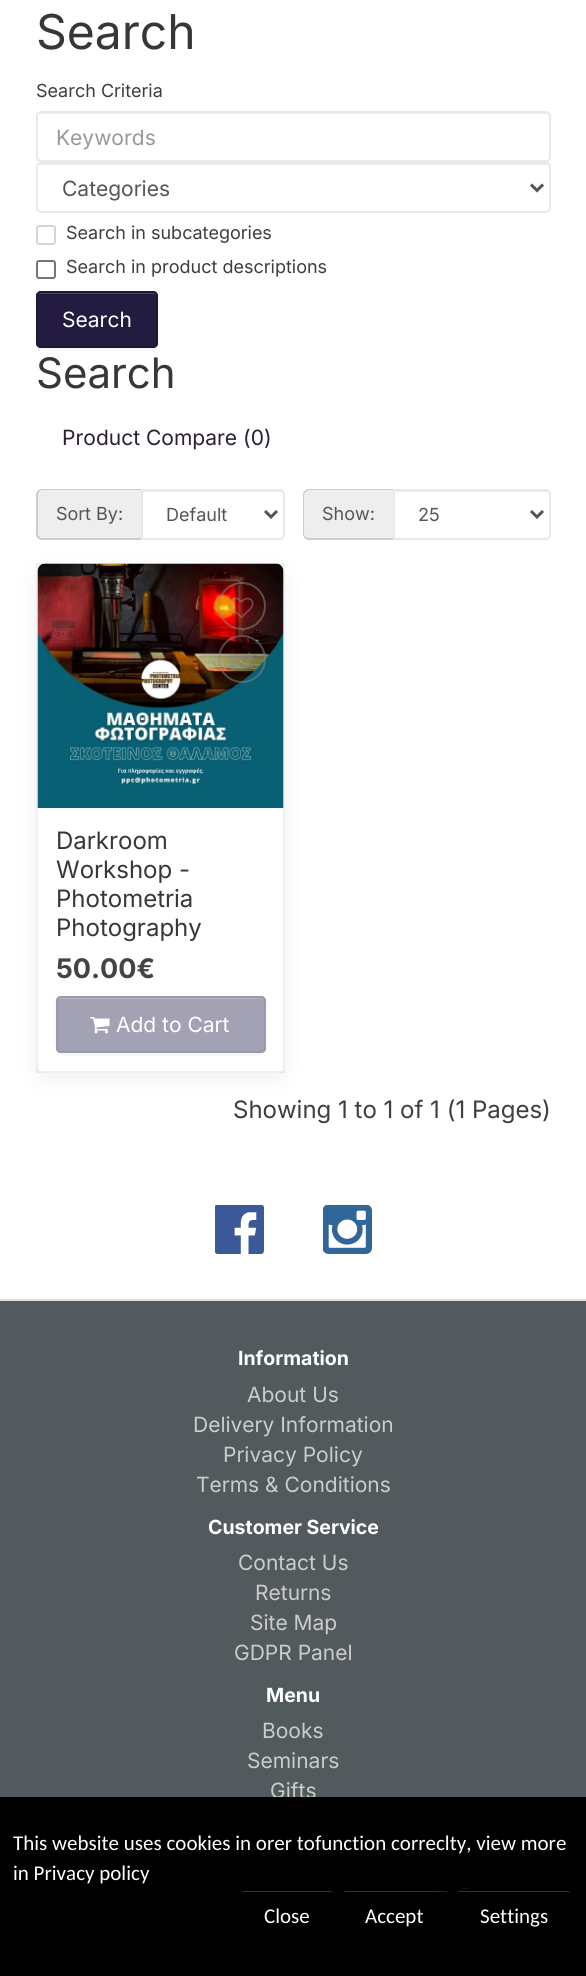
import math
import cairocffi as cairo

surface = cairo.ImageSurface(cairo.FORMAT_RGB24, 586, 1976)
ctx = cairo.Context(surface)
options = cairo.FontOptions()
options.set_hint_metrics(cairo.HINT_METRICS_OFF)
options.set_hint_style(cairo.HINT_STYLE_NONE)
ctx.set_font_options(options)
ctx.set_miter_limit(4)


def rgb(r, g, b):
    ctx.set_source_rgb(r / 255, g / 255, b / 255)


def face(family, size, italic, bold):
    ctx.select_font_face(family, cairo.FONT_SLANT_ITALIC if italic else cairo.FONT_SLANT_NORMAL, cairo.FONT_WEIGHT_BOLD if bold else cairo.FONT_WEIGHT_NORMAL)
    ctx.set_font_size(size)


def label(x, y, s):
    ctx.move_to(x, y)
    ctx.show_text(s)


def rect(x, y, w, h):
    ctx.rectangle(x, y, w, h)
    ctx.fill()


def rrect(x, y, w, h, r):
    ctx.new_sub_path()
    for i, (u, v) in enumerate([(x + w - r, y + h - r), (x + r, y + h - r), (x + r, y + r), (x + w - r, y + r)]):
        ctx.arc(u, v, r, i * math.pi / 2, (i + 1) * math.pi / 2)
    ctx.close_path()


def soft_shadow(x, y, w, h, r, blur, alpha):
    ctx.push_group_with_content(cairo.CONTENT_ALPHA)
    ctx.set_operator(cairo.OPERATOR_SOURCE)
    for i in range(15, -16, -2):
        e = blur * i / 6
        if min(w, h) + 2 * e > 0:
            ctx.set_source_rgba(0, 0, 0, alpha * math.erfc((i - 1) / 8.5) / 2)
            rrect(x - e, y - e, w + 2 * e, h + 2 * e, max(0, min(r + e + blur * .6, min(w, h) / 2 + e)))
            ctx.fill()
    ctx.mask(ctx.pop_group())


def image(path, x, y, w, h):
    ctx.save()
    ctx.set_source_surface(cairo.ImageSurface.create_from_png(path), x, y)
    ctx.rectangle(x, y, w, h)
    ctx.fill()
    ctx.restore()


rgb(255, 255, 255)
ctx.paint()
face('Inter', 48, 0, 0)
rgb(55, 55, 55)
label(36, 49, 'Search')
face('Inter', 18, 0, 0)
rgb(59, 63, 65)
label(36, 97, 'Search Criteria')
rgb(236, 236, 236)
ctx.new_path()
ctx.move_to(40, 114)
ctx.line_to(546, 114)
ctx.curve_to(548, 114, 549, 115, 549, 117)
ctx.line_to(549, 115)
ctx.line_to(547, 113)
ctx.line_to(41, 113)
ctx.curve_to(39, 113, 38, 115, 38, 117)
ctx.curve_to(38, 115, 39, 114, 40, 114)
ctx.close_path()
ctx.fill()
rrect(37, 112, 513, 49, 4)
rgb(233, 233, 233)
ctx.stroke()
face('Inter', 21, 0, 0)
rgb(153, 153, 153)
label(56, 145, 'Keywords')
rgb(236, 236, 236)
ctx.new_path()
ctx.move_to(40, 165)
ctx.line_to(546, 165)
ctx.curve_to(548, 165, 549, 166, 549, 168)
ctx.line_to(549, 166)
ctx.line_to(547, 164)
ctx.line_to(41, 164)
ctx.curve_to(39, 164, 38, 166, 38, 168)
ctx.curve_to(38, 166, 39, 165, 40, 165)
ctx.close_path()
ctx.fill()
rrect(37, 163, 513, 49, 4)
rgb(233, 233, 233)
ctx.stroke()
ctx.new_path()
ctx.move_to(531, 184.5)
ctx.line_to(537, 190.5)
ctx.line_to(543, 184.5)
rgb(85, 85, 85)
ctx.set_line_width(3)
ctx.stroke()
label(62, 196, 'Categories')
rrect(37, 226, 18, 18, 2)
rgb(214, 214, 214)
ctx.set_line_width(2)
ctx.stroke()
face('Inter', 18, 0, 0)
rgb(59, 63, 65)
label(66, 239, 'Search in subcategories')
rrect(37, 261, 18, 17, 2)
rgb(118, 118, 118)
ctx.stroke()
rgb(59, 63, 65)
label(66, 273, 'Search in product descriptions')
rgb(0, 0, 0)
soft_shadow(36, 293, 122, 57, 5, 1.5, 0.05)
rgb(36, 28, 64)
rrect(36, 291, 122, 57, 5)
ctx.fill()
rgb(80, 73, 102)
ctx.new_path()
ctx.move_to(40, 294)
ctx.line_to(153, 294)
ctx.curve_to(155, 294, 156, 295, 156, 297)
ctx.curve_to(156, 295, 155, 293, 153, 293)
ctx.line_to(60, 293)
ctx.curve_to(58, 293, 38, 288, 38, 297)
ctx.curve_to(38, 295, 39, 294, 40, 294)
ctx.close_path()
ctx.fill()
rrect(37, 292, 120, 55, 4)
rgb(30, 23, 53)
ctx.stroke()
face('Inter', 21, 0, 0)
rgb(255, 255, 255)
label(62, 327, 'Search')
face('Inter', 42, 0, 0)
rgb(55, 55, 55)
label(36, 388, 'Search')
face('Inter', 21, 0, 0)
rgb(43, 33, 50)
label(62, 445, 'Product Compare (0)')
rgb(238, 238, 238)
ctx.new_path()
ctx.move_to(42, 489)
ctx.line_to(141, 489)
ctx.line_to(141, 540)
ctx.line_to(42, 540)
ctx.curve_to(38.5, 540, 36, 537.5, 36, 534)
ctx.line_to(36, 495)
ctx.curve_to(36, 491.5, 38.5, 489, 42, 489)
ctx.close_path()
ctx.fill()
rgb(204, 204, 204)
ctx.set_fill_rule(cairo.FILL_RULE_EVEN_ODD)
ctx.new_path()
ctx.move_to(42, 489)
ctx.line_to(141, 489)
ctx.line_to(141, 540)
ctx.line_to(42, 540)
ctx.curve_to(39, 540, 36, 537, 36, 534)
ctx.line_to(36, 495)
ctx.curve_to(36, 492, 39, 489, 42, 489)
ctx.close_path()
ctx.move_to(42, 490)
ctx.line_to(141, 490)
ctx.line_to(141, 538)
ctx.line_to(42, 538)
ctx.curve_to(40, 538, 38, 536, 38, 534)
ctx.line_to(38, 495)
ctx.curve_to(38, 493, 40, 490, 42, 490)
ctx.close_path()
ctx.fill()
face('Inter', 18, 0, 0)
rgb(85, 85, 85)
label(56, 520, 'Sort By:')
rgb(236, 236, 236)
ctx.set_fill_rule(cairo.FILL_RULE_WINDING)
ctx.new_path()
ctx.move_to(143, 491)
ctx.line_to(143, 492)
ctx.line_to(280, 492)
ctx.curve_to(282, 492, 284, 493, 284, 495)
ctx.curve_to(284, 493, 283, 491, 281, 491)
ctx.close_path()
ctx.fill()
rgb(238, 238, 238)
ctx.new_path()
ctx.move_to(309, 489)
ctx.line_to(393, 489)
ctx.line_to(393, 540)
ctx.line_to(309, 540)
ctx.curve_to(305.5, 540, 303, 537.5, 303, 534)
ctx.line_to(303, 495)
ctx.curve_to(303, 491.5, 305.5, 489, 309, 489)
ctx.close_path()
ctx.fill()
rgb(204, 204, 204)
ctx.set_fill_rule(cairo.FILL_RULE_EVEN_ODD)
ctx.new_path()
ctx.move_to(309, 489)
ctx.line_to(393, 489)
ctx.line_to(393, 540)
ctx.line_to(309, 540)
ctx.curve_to(306, 540, 303, 537, 303, 534)
ctx.line_to(303, 495)
ctx.curve_to(303, 492, 306, 489, 309, 489)
ctx.close_path()
ctx.move_to(309, 490)
ctx.line_to(393, 490)
ctx.line_to(393, 538)
ctx.line_to(309, 538)
ctx.curve_to(307, 538, 304, 536, 304, 534)
ctx.line_to(304, 495)
ctx.curve_to(304, 493, 307, 490, 309, 490)
ctx.close_path()
ctx.fill()
rgb(0, 0, 0)
soft_shadow(36, 570, 249, 510, 9, 11, 0.06)
ctx.new_path()
ctx.move_to(142, 490)
ctx.line_to(280, 490)
ctx.curve_to(282, 490, 284, 492, 284, 494)
ctx.line_to(284, 535)
ctx.curve_to(284, 537, 282, 539, 280, 539)
ctx.line_to(142, 539)
ctx.close_path()
rgb(233, 233, 233)
ctx.stroke()
ctx.new_path()
ctx.move_to(265, 511)
ctx.line_to(271, 517)
ctx.line_to(277, 511)
rgb(85, 85, 85)
ctx.set_line_width(3)
ctx.stroke()
label(166, 521, 'Default')
label(322, 520, 'Show:')
rgb(236, 236, 236)
ctx.set_fill_rule(cairo.FILL_RULE_WINDING)
ctx.new_path()
ctx.move_to(395, 491)
ctx.line_to(395, 492)
ctx.line_to(546, 492)
ctx.curve_to(548, 492, 549, 493, 549, 495)
ctx.curve_to(549, 493, 548, 491, 546, 491)
ctx.close_path()
ctx.fill()
ctx.new_path()
ctx.move_to(394, 490)
ctx.line_to(546, 490)
ctx.curve_to(548, 490, 550, 492, 550, 494)
ctx.line_to(550, 535)
ctx.curve_to(550, 537, 548, 539, 546, 539)
ctx.line_to(394, 539)
ctx.close_path()
rgb(233, 233, 233)
ctx.set_line_width(2)
ctx.stroke()
ctx.new_path()
ctx.move_to(531, 511)
ctx.line_to(537, 517)
ctx.line_to(543, 511)
rgb(85, 85, 85)
ctx.set_line_width(3)
ctx.stroke()
label(418, 521, '25')
rgb(255, 255, 255)
rrect(36, 563, 249, 510, 9)
ctx.fill()
ctx.rectangle(37, 564, 247, 508)
ctx.set_source_rgba(0, 0, 0, 0.06)
ctx.set_line_width(2)
ctx.stroke()
image('image0.png', 37, 563, 247, 245)
face('Inter', 24, 0, 0)
rgb(55, 55, 55)
label(56, 849, 'Darkroom')
label(56, 878, 'Workshop -')
label(56, 907, 'Photometria')
label(56, 936, 'Photography')
face('Inter', 27, 0, 1)
rgb(68, 68, 68)
label(56, 978, '50.00€')
ctx.new_path()
ctx.arc(242, 606, 23, 0, 2 * math.pi)
ctx.set_source_rgba(0.541, 0.541, 0.565, 0.5)
ctx.stroke()
image('image1.png', 229, 597, 25, 22)
ctx.arc(242, 659, 23, 0, 2 * math.pi)
ctx.stroke()
image('image2.png', 229, 652, 25, 19)
rgb(0, 0, 0)
soft_shadow(56, 998, 210, 57, 5, 1.5, 0.05)
rgb(162, 162, 180)
rrect(56, 996, 210, 57, 5)
ctx.fill()
rgb(181, 181, 195)
ctx.new_path()
ctx.move_to(60, 999)
ctx.line_to(261, 999)
ctx.curve_to(263, 999, 264, 1000, 264, 1002)
ctx.curve_to(264, 1000, 263, 998, 261, 998)
ctx.line_to(59, 998)
ctx.curve_to(57, 999, 57, 1000, 57, 1002)
ctx.curve_to(57, 1000, 58, 999, 60, 999)
ctx.close_path()
ctx.fill()
rrect(57, 997, 208, 55, 4)
rgb(154, 154, 173)
ctx.stroke()
image('image3.png', 90, 1017, 20, 17)
face('Inter', 21, 0, 0)
rgb(255, 255, 255)
label(116, 1032, 'Add to Cart')
face('Inter', 24, 0, 0)
rgb(59, 63, 65)
label(233, 1118, 'Showing 1 to 1 of 1 (1 Pages)')
image('image4.png', 215, 1205, 49, 49)
image('image5.png', 323, 1205, 49, 49)
rgb(82, 90, 93)
rect(0, 1301, 586, 496)
rgb(221, 221, 221)
rect(0, 1299, 586, 2)
face('Inter', 19.5, 0, 1)
rgb(255, 255, 255)
label(238, 1365, 'Information')
face('Inter', 21, 0, 0)
rgb(204, 204, 204)
label(247, 1402, 'About Us')
label(193, 1432, 'Delivery Information')
label(223, 1462, 'Privacy Policy')
label(196, 1492, 'Terms & Conditions')
face('Inter', 19.5, 0, 1)
rgb(255, 255, 255)
label(208, 1534, 'Customer Service')
face('Inter', 21, 0, 0)
rgb(204, 204, 204)
label(238, 1570, 'Contact Us')
label(255, 1600, 'Returns')
label(250, 1630, 'Site Map')
label(234, 1660, 'GDPR Panel')
face('Inter', 19.5, 0, 1)
rgb(255, 255, 255)
label(266, 1702, 'Menu')
face('Inter', 21, 0, 0)
rgb(204, 204, 204)
label(262, 1738, 'Books')
label(247, 1768, 'Seminars')
label(270, 1798, 'Gifts')
rgb(0, 0, 0)
rect(0, 1797, 586, 179)
face('Carlito', 21, 0, 0)
rgb(255, 255, 255)
label(13, 1850, 'This website uses cookies in orer tofunction correclty, view more')
label(13, 1880, 'in Privacy policy')
rgb(51, 51, 51)
ctx.new_path()
ctx.move_to(243, 1892)
ctx.line_to(330, 1892)
ctx.curve_to(332, 1892, 333, 1893, 333, 1894)
ctx.curve_to(333, 1886, 319, 1890, 316, 1890)
ctx.line_to(258, 1890)
ctx.curve_to(254, 1890, 240, 1886, 240, 1894)
ctx.curve_to(240, 1893, 241, 1892, 243, 1892)
ctx.close_path()
ctx.fill()
rrect(240, 1890, 94, 55, 4)
rgb(0, 0, 0)
ctx.stroke()
rgb(255, 255, 255)
label(264, 1923, 'Close')
rgb(51, 51, 51)
ctx.new_path()
ctx.move_to(345, 1892)
ctx.line_to(429, 1892)
ctx.curve_to(453, 1892, 448, 1888, 448, 1910)
ctx.line_to(448, 1943)
ctx.curve_to(449, 1943, 449, 1942, 449, 1941)
ctx.line_to(449, 1893)
ctx.curve_to(449, 1891, 448, 1890, 446, 1890)
ctx.line_to(345, 1890)
ctx.curve_to(343, 1890, 342, 1891, 342, 1893)
ctx.line_to(342, 1894)
ctx.curve_to(342, 1893, 343, 1892, 345, 1892)
ctx.close_path()
ctx.fill()
rrect(342, 1890, 107, 55, 4)
rgb(0, 0, 0)
ctx.stroke()
rgb(255, 255, 255)
label(365, 1923, 'Accept')
rgb(51, 51, 51)
ctx.new_path()
ctx.move_to(459, 1892)
ctx.line_to(568, 1892)
ctx.curve_to(570, 1892, 572, 1893, 572, 1894)
ctx.curve_to(572, 1892, 571, 1890, 569, 1890)
ctx.line_to(477, 1890)
ctx.curve_to(476, 1890, 456, 1885, 456, 1894)
ctx.curve_to(456, 1893, 457, 1892, 459, 1892)
ctx.close_path()
ctx.fill()
rrect(456, 1890, 116, 55, 4)
rgb(0, 0, 0)
ctx.stroke()
rgb(255, 255, 255)
label(480, 1923, 'Settings')
surface.write_to_png('render.png')
